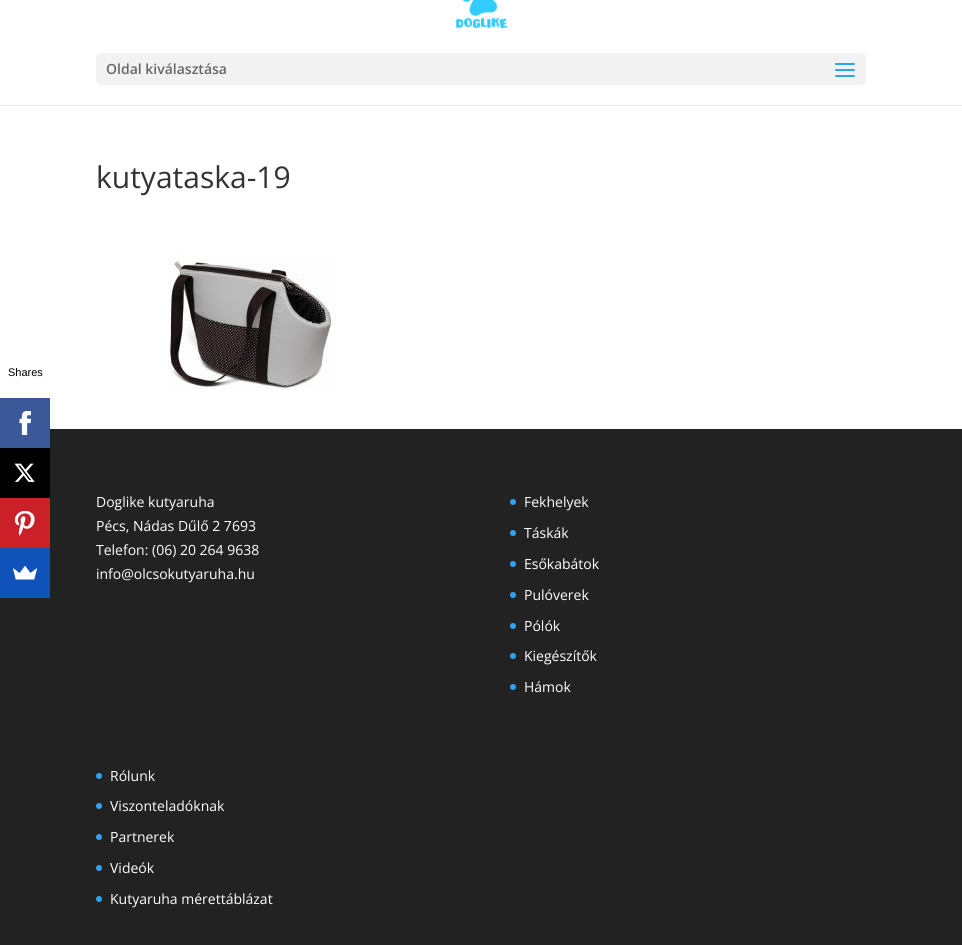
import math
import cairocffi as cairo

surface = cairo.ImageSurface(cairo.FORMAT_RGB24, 962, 945)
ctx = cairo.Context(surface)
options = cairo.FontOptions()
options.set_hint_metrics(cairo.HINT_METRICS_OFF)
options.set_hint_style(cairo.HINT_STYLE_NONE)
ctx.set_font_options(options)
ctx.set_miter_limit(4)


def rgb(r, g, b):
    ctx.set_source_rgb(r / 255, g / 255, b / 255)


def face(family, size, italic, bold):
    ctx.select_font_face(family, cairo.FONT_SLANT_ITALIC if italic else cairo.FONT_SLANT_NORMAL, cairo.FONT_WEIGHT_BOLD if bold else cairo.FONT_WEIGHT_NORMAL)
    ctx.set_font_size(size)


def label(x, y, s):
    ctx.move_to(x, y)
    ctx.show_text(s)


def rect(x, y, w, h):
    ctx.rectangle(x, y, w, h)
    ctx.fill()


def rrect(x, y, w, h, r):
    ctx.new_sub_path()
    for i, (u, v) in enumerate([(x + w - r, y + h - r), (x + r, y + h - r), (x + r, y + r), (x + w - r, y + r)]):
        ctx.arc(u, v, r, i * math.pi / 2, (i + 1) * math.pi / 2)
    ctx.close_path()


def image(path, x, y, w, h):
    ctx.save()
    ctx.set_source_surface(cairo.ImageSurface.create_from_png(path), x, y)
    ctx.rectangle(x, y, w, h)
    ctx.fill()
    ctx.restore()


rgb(255, 255, 255)
ctx.paint()
face('Liberation Sans', 11, 0, 0)
rgb(0, 0, 0)
label(8, 376, 'Shares')
rgb(34, 34, 34)
rect(0, 429, 962, 516)
rgb(59, 89, 152)
rect(0, 398, 50, 50)
image('image0.png', 19, 411, 12, 24)
rgb(0, 0, 0)
rect(0, 448, 50, 50)
image('image1.png', 14, 463, 21, 19)
rgb(203, 32, 39)
rect(0, 498, 50, 50)
image('image2.png', 15, 511, 20, 25)
rgb(15, 82, 186)
rect(0, 548, 50, 50)
image('image3.png', 13, 566, 24, 14)
rgb(230, 230, 230)
rect(0, 105, 962, 1)
image('image4.png', 456, 0, 52, 29)
rgb(242, 242, 242)
rrect(96, 53, 770, 32, 5)
ctx.fill()
face('Open Sans SemiBold', 14, 0, 0)
rgb(102, 102, 102)
label(106, 74, 'Oldal kiválasztása')
image('image5.png', 835, 63, 20, 14)
face('Open Sans', 30, 0, 0)
rgb(51, 51, 51)
label(96, 188, 'kutyataska-19')
image('image6.png', 168, 255, 168, 135)
face('Open Sans', 14, 0, 0)
rgb(255, 255, 255)
label(96, 507, 'Doglike kutyaruha')
label(96, 531, 'Pécs, Nádas Dűlő 2 7693')
label(96, 555, 'Telefon: (06) 20 264 9638')
label(96, 579, 'info@olcsokutyaruha.hu')
rgb(46, 163, 242)
ctx.new_path()
ctx.arc(513, 502, 3, 0, 2 * math.pi)
ctx.fill()
rgb(255, 255, 255)
label(524, 507, 'Fekhelyek')
rgb(46, 163, 242)
ctx.new_path()
ctx.arc(513, 533, 3, 0, 2 * math.pi)
ctx.fill()
rgb(255, 255, 255)
label(524, 538, 'Táskák')
rgb(46, 163, 242)
ctx.new_path()
ctx.arc(513, 564, 3, 0, 2 * math.pi)
ctx.fill()
rgb(255, 255, 255)
label(524, 569, 'Esőkabátok')
rgb(46, 163, 242)
ctx.new_path()
ctx.arc(513, 595, 3, 0, 2 * math.pi)
ctx.fill()
rgb(255, 255, 255)
label(524, 600, 'Pulóverek')
rgb(46, 163, 242)
ctx.new_path()
ctx.arc(513, 626, 3, 0, 2 * math.pi)
ctx.fill()
rgb(255, 255, 255)
label(524, 631, 'Pólók')
rgb(46, 163, 242)
ctx.new_path()
ctx.arc(513, 656, 3, 0, 2 * math.pi)
ctx.fill()
rgb(255, 255, 255)
label(524, 661, 'Kiegészítők')
rgb(46, 163, 242)
ctx.new_path()
ctx.arc(513, 687, 3, 0, 2 * math.pi)
ctx.fill()
rgb(255, 255, 255)
label(524, 692, 'Hámok')
rgb(46, 163, 242)
ctx.new_path()
ctx.arc(99, 776, 3, 0, 2 * math.pi)
ctx.fill()
rgb(255, 255, 255)
label(110, 781, 'Rólunk')
rgb(46, 163, 242)
ctx.new_path()
ctx.arc(99, 806, 3, 0, 2 * math.pi)
ctx.fill()
rgb(255, 255, 255)
label(110, 811, 'Viszonteladóknak')
rgb(46, 163, 242)
ctx.new_path()
ctx.arc(99, 837, 3, 0, 2 * math.pi)
ctx.fill()
rgb(255, 255, 255)
label(110, 842, 'Partnerek')
rgb(46, 163, 242)
ctx.new_path()
ctx.arc(99, 868, 3, 0, 2 * math.pi)
ctx.fill()
rgb(255, 255, 255)
label(110, 873, 'Videók')
rgb(46, 163, 242)
ctx.new_path()
ctx.arc(99, 899, 3, 0, 2 * math.pi)
ctx.fill()
rgb(255, 255, 255)
label(110, 904, 'Kutyaruha mérettáblázat')
surface.write_to_png('render.png')
